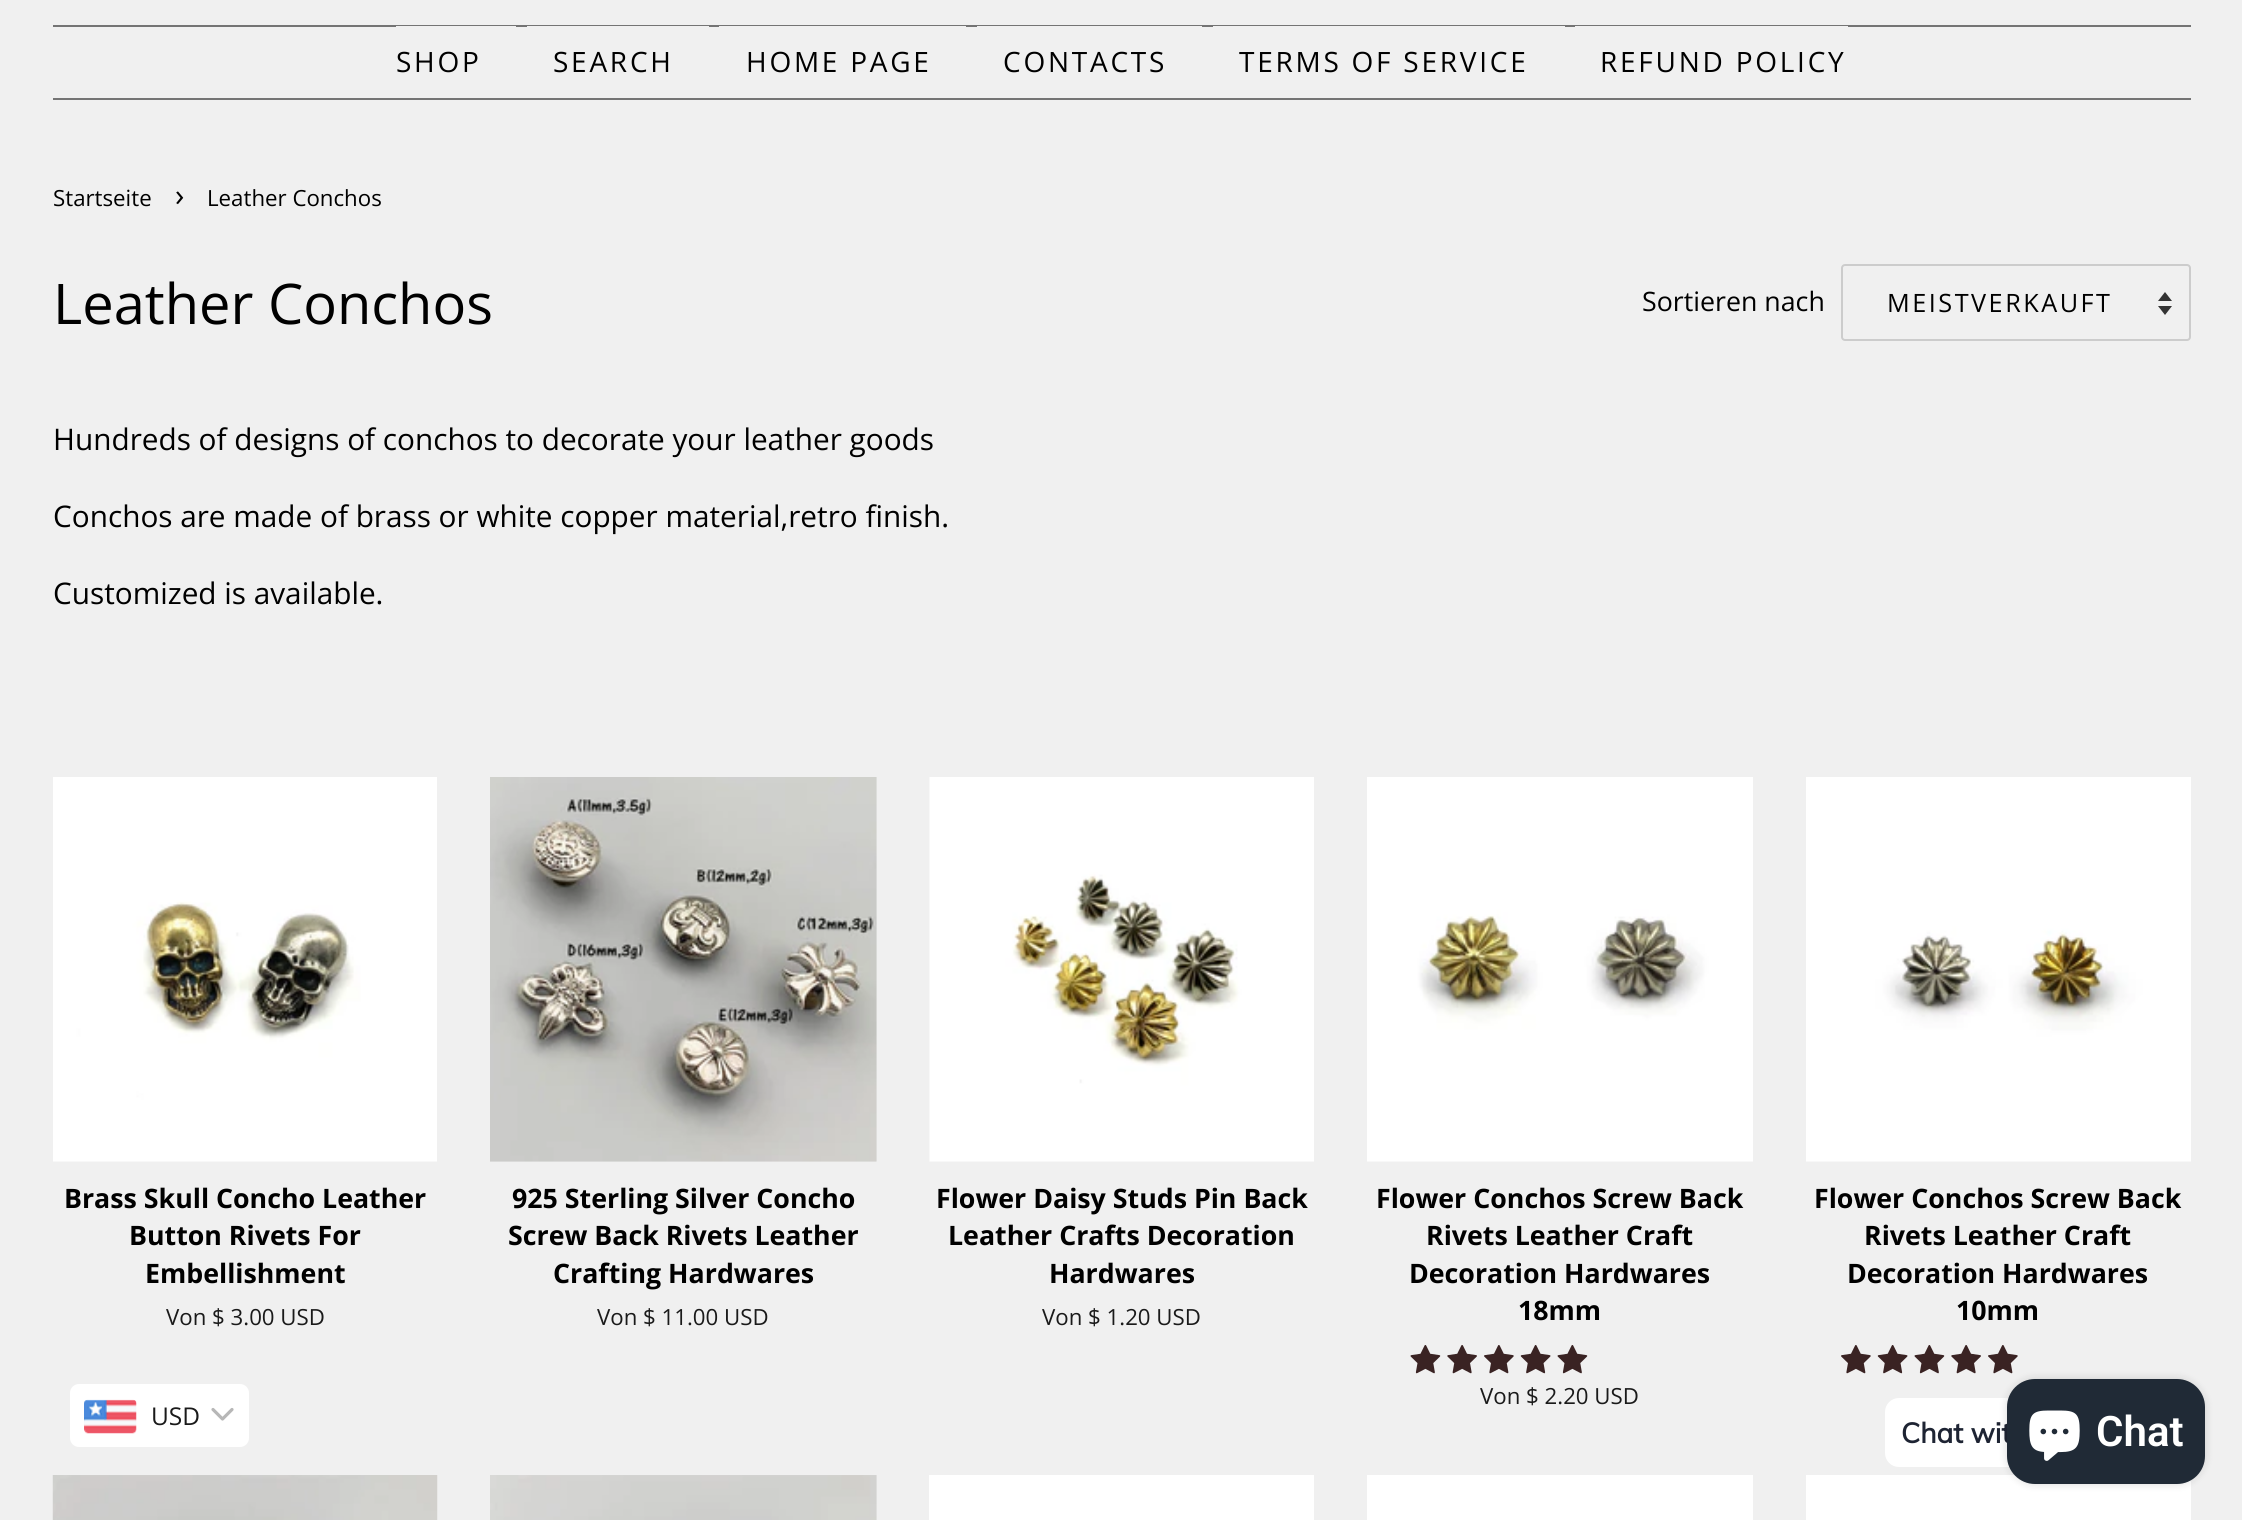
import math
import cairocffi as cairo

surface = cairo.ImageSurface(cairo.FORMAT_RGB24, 2242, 1520)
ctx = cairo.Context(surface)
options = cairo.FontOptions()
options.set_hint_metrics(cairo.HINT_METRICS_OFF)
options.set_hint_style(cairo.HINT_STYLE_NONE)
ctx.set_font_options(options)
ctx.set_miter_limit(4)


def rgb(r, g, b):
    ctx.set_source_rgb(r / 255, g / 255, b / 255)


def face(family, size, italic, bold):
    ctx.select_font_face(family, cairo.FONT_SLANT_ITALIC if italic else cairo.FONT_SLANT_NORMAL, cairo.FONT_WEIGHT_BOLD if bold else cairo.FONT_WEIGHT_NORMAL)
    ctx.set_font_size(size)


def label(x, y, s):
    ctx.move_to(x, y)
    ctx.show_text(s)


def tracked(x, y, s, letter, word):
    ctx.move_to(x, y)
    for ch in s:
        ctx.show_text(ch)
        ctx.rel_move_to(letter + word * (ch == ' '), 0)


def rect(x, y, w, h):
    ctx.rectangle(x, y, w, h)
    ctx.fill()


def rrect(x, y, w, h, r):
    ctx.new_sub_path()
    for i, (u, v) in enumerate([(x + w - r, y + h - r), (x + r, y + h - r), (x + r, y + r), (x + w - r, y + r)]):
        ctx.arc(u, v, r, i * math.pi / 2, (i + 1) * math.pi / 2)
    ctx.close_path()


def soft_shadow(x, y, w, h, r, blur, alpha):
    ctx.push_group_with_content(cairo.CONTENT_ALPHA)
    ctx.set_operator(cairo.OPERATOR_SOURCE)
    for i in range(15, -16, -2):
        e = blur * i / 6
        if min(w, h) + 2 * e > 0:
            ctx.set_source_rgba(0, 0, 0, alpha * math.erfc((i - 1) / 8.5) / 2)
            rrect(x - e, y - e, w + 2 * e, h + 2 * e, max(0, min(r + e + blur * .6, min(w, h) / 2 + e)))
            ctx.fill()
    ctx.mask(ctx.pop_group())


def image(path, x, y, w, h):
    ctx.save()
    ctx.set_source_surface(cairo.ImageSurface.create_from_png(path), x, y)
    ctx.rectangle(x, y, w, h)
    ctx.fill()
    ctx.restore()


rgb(240, 240, 240)
ctx.paint()
rgb(116, 116, 116)
rect(53, 25, 2138, 2)
rect(53, 98, 2138, 2)
rgb(240, 240, 240)
rect(396, 26, 120, 1)
face('Open Sans', 28, 0, 0)
rgb(0, 0, 0)
tracked(396, 72, 'SHOP', 2.75, 0)
rgb(240, 240, 240)
rect(527, 26, 182, 1)
rgb(0, 0, 0)
tracked(553, 72, 'SEARCH', 2.75, 0)
rgb(240, 240, 240)
rect(719, 26, 247, 1)
rgb(0, 0, 0)
tracked(746, 72, 'HOME PAGE', 2.75, 0)
rgb(240, 240, 240)
rect(977, 26, 225, 1)
rgb(0, 0, 0)
tracked(1003, 72, 'CONTACTS', 2.75, 0)
rgb(240, 240, 240)
rect(1213, 26, 352, 1)
rgb(0, 0, 0)
tracked(1239, 72, 'TERMS OF SERVICE', 2.75, 0)
rgb(240, 240, 240)
rect(1575, 26, 273, 1)
rgb(0, 0, 0)
tracked(1600, 72, 'REFUND POLICY', 2.75, 0)
face('Open Sans', 22.25, 0, 0)
label(53, 206, 'Startseite')
face('Open Sans', 31, 0, 0)
label(175, 206, '›')
face('Open Sans', 22.25, 0, 0)
label(207, 206, 'Leather Conchos')
face('Open Sans', 56, 0, 0)
label(53, 324, 'Leather Conchos')
face('Open Sans', 26.75, 0, 0)
label(1642, 311, 'Sortieren nach')
rgb(51, 51, 51)
ctx.new_path()
ctx.move_to(2158, 306)
ctx.line_to(2165, 315)
ctx.line_to(2172, 306)
ctx.close_path()
ctx.move_to(2165, 292)
ctx.line_to(2158, 301)
ctx.line_to(2172, 301)
ctx.close_path()
ctx.fill()
rrect(1842, 265, 348, 75, 3)
rgb(204, 204, 204)
ctx.stroke()
face('Open Sans', 25.25, 0, 0)
rgb(0, 0, 0)
tracked(1887, 312, 'MEISTVERKAUFT', 2.5, 0)
face('Open Sans', 29.75, 0, 0)
label(53, 450, 'Hundreds of designs of conchos to decorate your leather goods')
label(53, 527, 'Conchos are made of brass or white copper material,retro finish.')
label(53, 604, 'Customized is available.')
image('image0.png', 53, 777, 384, 385)
face('Open Sans', 26.75, 0, 1)
label(64, 1208, 'Brass Skull Concho Leather')
label(129, 1245, 'Button Rivets For')
label(145, 1283, 'Embellishment')
face('Open Sans', 22.25, 0, 0)
rgb(26, 26, 26)
label(166, 1325, 'Von $ 3.00 USD')
image('image1.png', 490, 777, 387, 385)
face('Open Sans', 26.75, 0, 1)
rgb(0, 0, 0)
label(512, 1208, '925 Sterling Silver Concho')
label(508, 1245, 'Screw Back Rivets Leather')
label(553, 1283, 'Crafting Hardwares')
face('Open Sans', 22.25, 0, 0)
rgb(26, 26, 26)
label(597, 1325, 'Von $ 11.00 USD')
image('image2.png', 929, 777, 385, 385)
face('Open Sans', 26.75, 0, 1)
rgb(0, 0, 0)
label(936, 1208, 'Flower Daisy Studs Pin Back')
label(948, 1245, 'Leather Crafts Decoration')
label(1049, 1283, 'Hardwares')
face('Open Sans', 22.25, 0, 0)
rgb(26, 26, 26)
label(1042, 1325, 'Von $ 1.20 USD')
image('image3.png', 1367, 777, 386, 385)
face('Open Sans', 26.75, 0, 1)
rgb(0, 0, 0)
label(1376, 1208, 'Flower Conchos Screw Back')
label(1426, 1245, 'Rivets Leather Craft')
label(1409, 1283, 'Decoration Hardwares')
label(1518, 1320, '18mm')
image('image4.png', 1410, 1345, 31, 29)
image('image5.png', 1447, 1345, 30, 29)
image('image6.png', 1484, 1345, 30, 29)
image('image7.png', 1520, 1345, 31, 29)
image('image4.png', 1557, 1345, 31, 29)
face('Open Sans', 22.25, 0, 0)
rgb(26, 26, 26)
label(1480, 1404, 'Von $ 2.20 USD')
image('image8.png', 1806, 777, 385, 385)
face('Open Sans', 26.75, 0, 1)
rgb(0, 0, 0)
label(1814, 1208, 'Flower Conchos Screw Back')
label(1864, 1245, 'Rivets Leather Craft')
label(1847, 1283, 'Decoration Hardwares')
label(1956, 1320, '10mm')
image('image6.png', 1841, 1345, 30, 29)
image('image7.png', 1877, 1345, 31, 29)
image('image4.png', 1914, 1345, 31, 29)
image('image5.png', 1951, 1345, 30, 29)
image('image6.png', 1988, 1345, 30, 29)
image('image9.png', 52, 1475, 386, 45)
image('image10.png', 490, 1475, 387, 45)
rgb(255, 255, 255)
rect(929, 1475, 385, 45)
rect(1367, 1475, 386, 45)
rect(1806, 1475, 385, 45)
rrect(70, 1384, 179, 63, 9)
ctx.fill()
image('image11.png', 84, 1399, 53, 35)
face('Open Sans', 24.5, 0, 0)
rgb(26, 26, 26)
label(151, 1425, 'USD')
ctx.new_path()
ctx.move_to(213, 1409.5)
ctx.line_to(222.5, 1419)
ctx.line_to(232, 1409.5)
rgb(183, 183, 183)
ctx.set_line_width(3.2)
ctx.set_line_cap(cairo.LINE_CAP_ROUND)
ctx.set_line_join(cairo.LINE_JOIN_ROUND)
ctx.stroke()
rgb(255, 255, 255)
rrect(1885, 1398, 198, 69, 14)
ctx.fill()
face('Muli', 28, 0, 1)
rgb(30, 36, 51)
label(1901, 1443, 'Chat wit')
rgb(0, 0, 0)
soft_shadow(2007, 1379, 198, 105, 28, 4.5, 0.15)
rgb(32, 42, 54)
rrect(2007, 1379, 198, 105, 28)
ctx.fill()
image('image12.png', 2029, 1410, 51, 51)
face('Roboto SemiBold', 42, 0, 0)
rgb(255, 255, 255)
label(2096, 1446, 'Chat')
surface.write_to_png('render.png')
